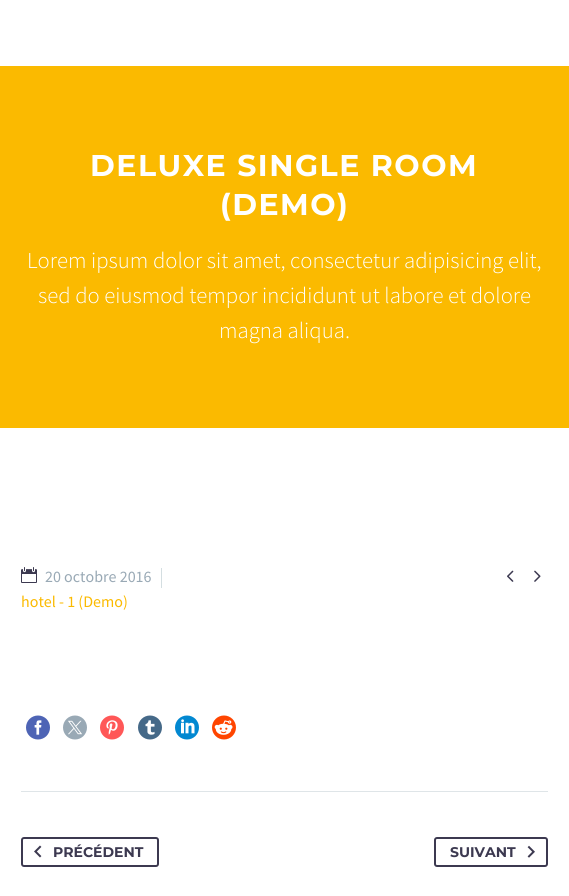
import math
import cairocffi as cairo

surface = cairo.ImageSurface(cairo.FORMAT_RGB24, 569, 896)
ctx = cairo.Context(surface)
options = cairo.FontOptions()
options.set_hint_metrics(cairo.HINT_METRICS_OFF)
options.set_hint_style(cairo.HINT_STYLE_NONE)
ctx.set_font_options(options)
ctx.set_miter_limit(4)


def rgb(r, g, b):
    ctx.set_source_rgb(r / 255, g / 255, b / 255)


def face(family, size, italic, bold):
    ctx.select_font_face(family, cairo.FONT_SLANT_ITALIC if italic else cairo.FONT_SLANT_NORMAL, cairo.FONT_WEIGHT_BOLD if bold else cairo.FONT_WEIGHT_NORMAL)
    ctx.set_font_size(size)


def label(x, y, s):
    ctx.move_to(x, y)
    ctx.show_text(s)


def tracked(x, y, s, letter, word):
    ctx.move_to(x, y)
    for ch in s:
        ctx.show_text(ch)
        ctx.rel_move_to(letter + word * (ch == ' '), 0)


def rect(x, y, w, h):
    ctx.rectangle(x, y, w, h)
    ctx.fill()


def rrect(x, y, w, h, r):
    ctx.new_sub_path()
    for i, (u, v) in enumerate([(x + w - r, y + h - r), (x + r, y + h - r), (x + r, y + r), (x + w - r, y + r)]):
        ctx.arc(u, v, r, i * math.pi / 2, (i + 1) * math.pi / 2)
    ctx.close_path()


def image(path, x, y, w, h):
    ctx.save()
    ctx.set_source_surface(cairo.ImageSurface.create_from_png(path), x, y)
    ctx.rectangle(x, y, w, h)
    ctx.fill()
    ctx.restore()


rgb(255, 255, 255)
ctx.paint()
rgb(251, 186, 0)
rect(0, 66, 569, 362)
face('Montserrat', 30, 0, 1)
rgb(255, 255, 255)
tracked(90, 176, 'DELUXE SINGLE ROOM', 1.5, 0)
tracked(220, 215, '(DEMO)', 1.5, 0)
face('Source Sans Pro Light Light', 22.75, 0, 0)
label(27, 268, 'Lorem ipsum dolor sit amet, consectetur adipisicing elit,')
label(38, 303, 'sed do eiusmod tempor incididunt ut labore et dolore')
label(219, 338, 'magna aliqua.')
image('image0.png', 21, 567, 16, 16)
face('Source Sans Pro', 16, 0, 0)
rgb(153, 169, 181)
label(45, 582, '20 octobre 2016')
rgb(212, 222, 225)
rect(161, 568, 1, 20)
rgb(251, 186, 0)
label(21, 607, 'hotel - 1 (Demo)')
image('image1.png', 507, 570, 7, 12)
image('image2.png', 534, 570, 7, 12)
image('image3.png', 26, 715, 24, 25)
image('image4.png', 63, 715, 24, 25)
image('image5.png', 100, 715, 24, 25)
image('image6.png', 138, 715, 24, 25)
image('image7.png', 175, 715, 24, 25)
image('image8.png', 212, 715, 24, 25)
rgb(223, 229, 232)
rect(21, 791, 527, 1)
rrect(22, 838, 136, 28, 2)
rgb(60, 57, 80)
ctx.stroke()
image('image9.png', 34, 845, 8, 13)
face('Montserrat', 14, 0, 1)
label(53, 857, 'PRÉCÉDENT')
rrect(435, 838, 112, 28, 2)
ctx.stroke()
label(450, 857, 'SUIVANT')
image('image10.png', 527, 845, 8, 13)
surface.write_to_png('render.png')
